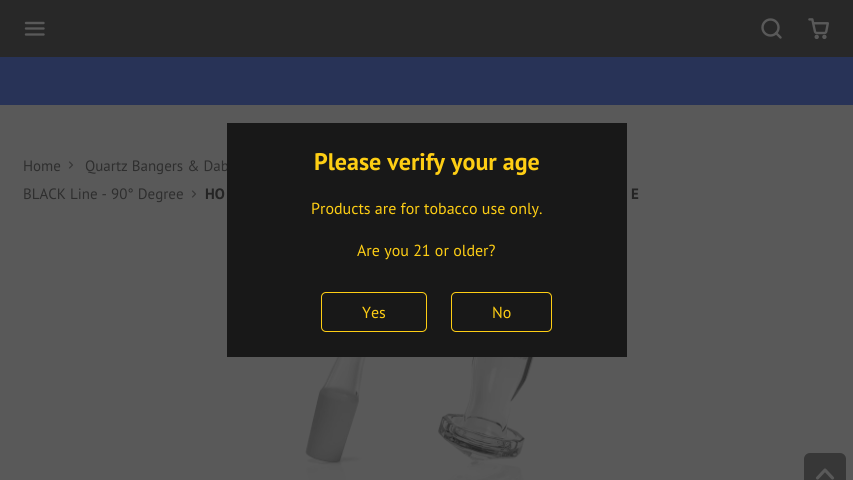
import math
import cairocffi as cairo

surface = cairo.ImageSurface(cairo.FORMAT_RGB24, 853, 480)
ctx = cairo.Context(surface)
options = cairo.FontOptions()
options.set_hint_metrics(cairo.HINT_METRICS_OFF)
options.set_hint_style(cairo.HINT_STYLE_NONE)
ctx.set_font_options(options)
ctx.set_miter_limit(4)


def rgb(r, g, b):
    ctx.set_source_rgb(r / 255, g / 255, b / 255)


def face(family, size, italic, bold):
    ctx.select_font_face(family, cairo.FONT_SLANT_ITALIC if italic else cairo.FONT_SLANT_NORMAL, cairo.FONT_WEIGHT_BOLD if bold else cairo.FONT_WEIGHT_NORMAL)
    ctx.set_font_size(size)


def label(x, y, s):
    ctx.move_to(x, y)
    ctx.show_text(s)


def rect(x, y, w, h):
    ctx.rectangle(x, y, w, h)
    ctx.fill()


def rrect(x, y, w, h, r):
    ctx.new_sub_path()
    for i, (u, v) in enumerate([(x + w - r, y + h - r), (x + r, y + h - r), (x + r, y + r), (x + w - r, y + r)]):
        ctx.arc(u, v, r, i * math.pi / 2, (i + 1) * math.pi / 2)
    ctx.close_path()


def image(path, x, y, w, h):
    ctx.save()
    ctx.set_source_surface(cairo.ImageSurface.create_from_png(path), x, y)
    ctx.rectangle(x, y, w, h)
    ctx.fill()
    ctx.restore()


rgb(40, 51, 87)
ctx.paint()
rgb(89, 89, 89)
rect(0, 105, 853, 375)
face('PT Sans', 15, 0, 0)
rgb(46, 46, 46)
label(85, 171, 'Quartz Bangers & Dab')
rgb(24, 24, 24)
rect(227, 123, 400, 234)
face('PT Sans', 24, 0, 1)
rgb(254, 206, 20)
label(314, 170, 'Please verify your age')
face('PT Sans', 16, 0, 0)
label(311, 214, 'Products are for tobacco use only.')
label(357, 256, 'Are you 21 or older?')
rrect(321.5, 292.5, 105, 39, 4.5)
ctx.set_line_width(1)
ctx.stroke()
label(362, 318, 'Yes')
rrect(451.5, 292.5, 100, 39, 4.5)
ctx.stroke()
label(492, 318, 'No')
rgb(40, 40, 40)
rect(0, 0, 853, 57)
ctx.new_path()
ctx.move_to(26, 28.5)
ctx.line_to(43.5, 28.5)
ctx.move_to(26, 23)
ctx.line_to(43.5, 23)
ctx.move_to(26, 34.5)
ctx.line_to(43.5, 34.5)
rgb(89, 89, 89)
ctx.set_line_width(2.4)
ctx.set_line_cap(cairo.LINE_CAP_ROUND)
ctx.set_line_join(cairo.LINE_JOIN_ROUND)
ctx.stroke()
ctx.arc(770.5, 27.5, 8, 0, 2 * math.pi)
ctx.set_line_cap(cairo.LINE_CAP_BUTT)
ctx.set_line_join(cairo.LINE_JOIN_MITER)
ctx.stroke()
ctx.new_path()
ctx.move_to(780.5, 37.5)
ctx.line_to(776, 33)
ctx.set_line_cap(cairo.LINE_CAP_ROUND)
ctx.set_line_join(cairo.LINE_JOIN_ROUND)
ctx.stroke()
image('image0.png', 808, 18, 21, 22)
face('PT Sans', 15, 0, 0)
rgb(46, 46, 46)
label(23, 171, 'Home')
ctx.new_path()
ctx.move_to(69.5, 168)
ctx.line_to(72.5, 165)
ctx.line_to(69.5, 162)
rgb(55, 55, 55)
ctx.set_line_width(1.2)
ctx.stroke()
rgb(46, 46, 46)
label(23, 199, 'BLACK Line - 90° Degree')
ctx.new_path()
ctx.move_to(192.5, 197)
ctx.line_to(195.5, 194)
ctx.line_to(192.5, 191)
rgb(55, 55, 55)
ctx.stroke()
face('PT Sans', 15, 0, 1)
rgb(36, 36, 36)
label(205, 199, 'HO')
label(631, 199, 'E')
image('image1.png', 305, 357, 243, 123)
rgb(55, 55, 55)
rrect(804, 453, 42, 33, 6)
ctx.fill()
ctx.new_path()
ctx.move_to(832.5, 478)
ctx.line_to(825, 470)
ctx.line_to(817.5, 478)
rgb(89, 89, 89)
ctx.set_line_width(3.1)
ctx.stroke()
surface.write_to_png('render.png')
